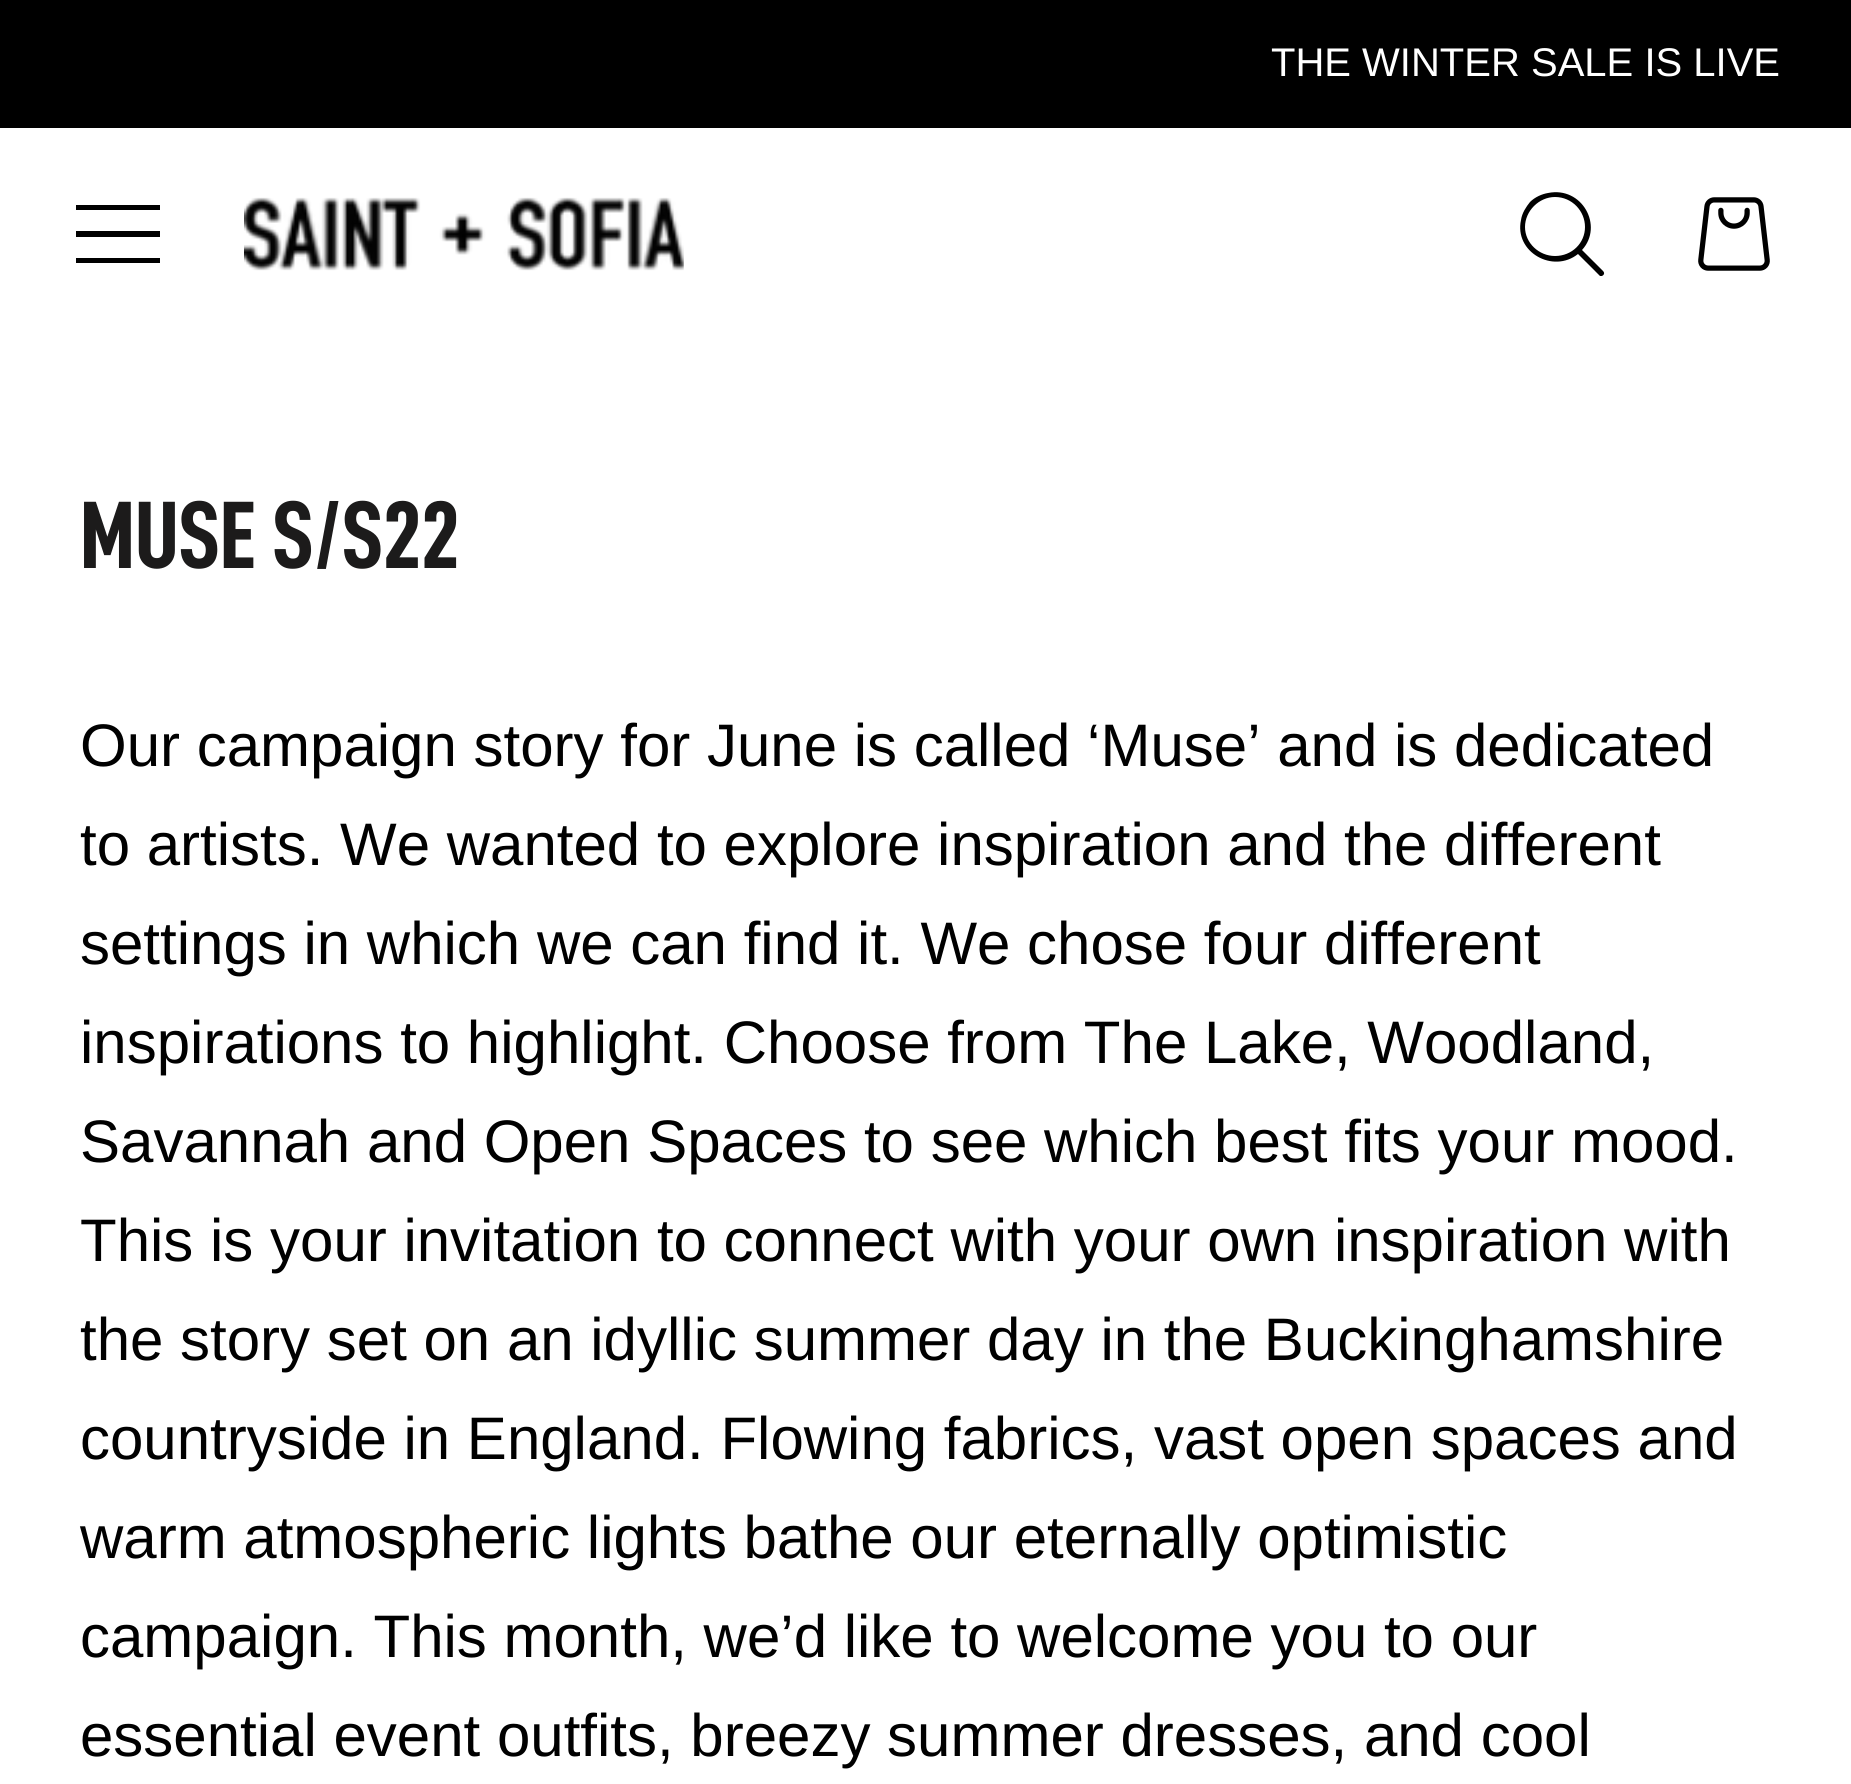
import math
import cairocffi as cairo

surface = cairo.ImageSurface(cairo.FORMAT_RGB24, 1851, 1784)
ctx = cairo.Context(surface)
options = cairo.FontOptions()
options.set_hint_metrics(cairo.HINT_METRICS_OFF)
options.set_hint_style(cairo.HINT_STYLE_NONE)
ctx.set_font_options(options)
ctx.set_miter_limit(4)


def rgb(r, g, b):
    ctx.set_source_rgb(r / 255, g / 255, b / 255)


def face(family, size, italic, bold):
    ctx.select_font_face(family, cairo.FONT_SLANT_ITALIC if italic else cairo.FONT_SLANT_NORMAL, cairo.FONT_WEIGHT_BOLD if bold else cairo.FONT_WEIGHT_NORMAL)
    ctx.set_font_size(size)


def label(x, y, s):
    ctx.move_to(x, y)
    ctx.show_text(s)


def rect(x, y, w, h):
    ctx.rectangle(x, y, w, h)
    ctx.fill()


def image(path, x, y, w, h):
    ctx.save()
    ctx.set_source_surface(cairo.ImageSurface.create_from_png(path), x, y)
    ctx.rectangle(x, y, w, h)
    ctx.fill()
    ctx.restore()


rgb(255, 255, 255)
ctx.paint()
rgb(0, 0, 0)
rect(0, 0, 1851, 128)
face('Liberation Sans', 40, 0, 0)
rgb(255, 255, 255)
label(1271, 76, 'THE WINTER SALE IS LIVE')
rgb(0, 0, 0)
ctx.new_path()
ctx.move_to(76, 205)
ctx.line_to(76, 210)
ctx.line_to(160, 210)
ctx.line_to(160, 205)
ctx.close_path()
ctx.move_to(76, 237)
ctx.line_to(160, 237)
ctx.line_to(160, 231)
ctx.line_to(76, 231)
ctx.close_path()
ctx.move_to(76, 263)
ctx.line_to(160, 263)
ctx.line_to(160, 258)
ctx.line_to(76, 258)
ctx.close_path()
ctx.fill()
image('image0.png', 244, 197, 440, 74)
ctx.new_path()
ctx.move_to(1603, 271)
ctx.line_to(1582, 250)
ctx.curve_to(1604, 226, 1582, 186, 1548, 193)
ctx.curve_to(1542, 194, 1535, 197, 1530, 202)
ctx.curve_to(1526, 207, 1522, 213, 1521, 220)
ctx.curve_to(1514, 252, 1553, 274, 1578, 254)
ctx.line_to(1600, 276)
ctx.line_to(1602, 276)
ctx.curve_to(1604, 275, 1605, 273, 1603, 271)
ctx.close_path()
ctx.move_to(1555, 256)
ctx.curve_to(1539, 256, 1525, 243, 1525, 227)
ctx.curve_to(1525, 211, 1539, 197, 1555, 197)
ctx.curve_to(1572, 197, 1585, 211, 1585, 227)
ctx.curve_to(1585, 243, 1572, 256, 1555, 256)
ctx.close_path()
ctx.fill()
image('image1.png', 1698, 197, 72, 74)
face('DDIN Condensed', 96, 0, 1)
rgb(28, 27, 27)
label(80, 568, 'MUSE S/S22')
face('Liberation Sans', 60, 0, 0)
rgb(0, 0, 0)
label(80, 766, 'Our campaign story for June is called ‘Muse’ and is dedicated')
label(80, 865, 'to artists. We wanted to explore inspiration and the different')
label(80, 964, 'settings in which we can find it. We chose four different')
label(80, 1063, 'inspirations to highlight. Choose from The Lake, Woodland,')
label(80, 1162, 'Savannah and Open Spaces to see which best fits your mood.')
label(80, 1261, 'This is your invitation to connect with your own inspiration with')
label(80, 1360, 'the story set on an idyllic summer day in the Buckinghamshire')
label(80, 1459, 'countryside in England. Flowing fabrics, vast open spaces and')
label(80, 1558, 'warm atmospheric lights bathe our eternally optimistic')
label(80, 1657, 'campaign. This month, we’d like to welcome you to our')
label(80, 1756, 'essential event outfits, breezy summer dresses, and cool')
surface.write_to_png('render.png')
